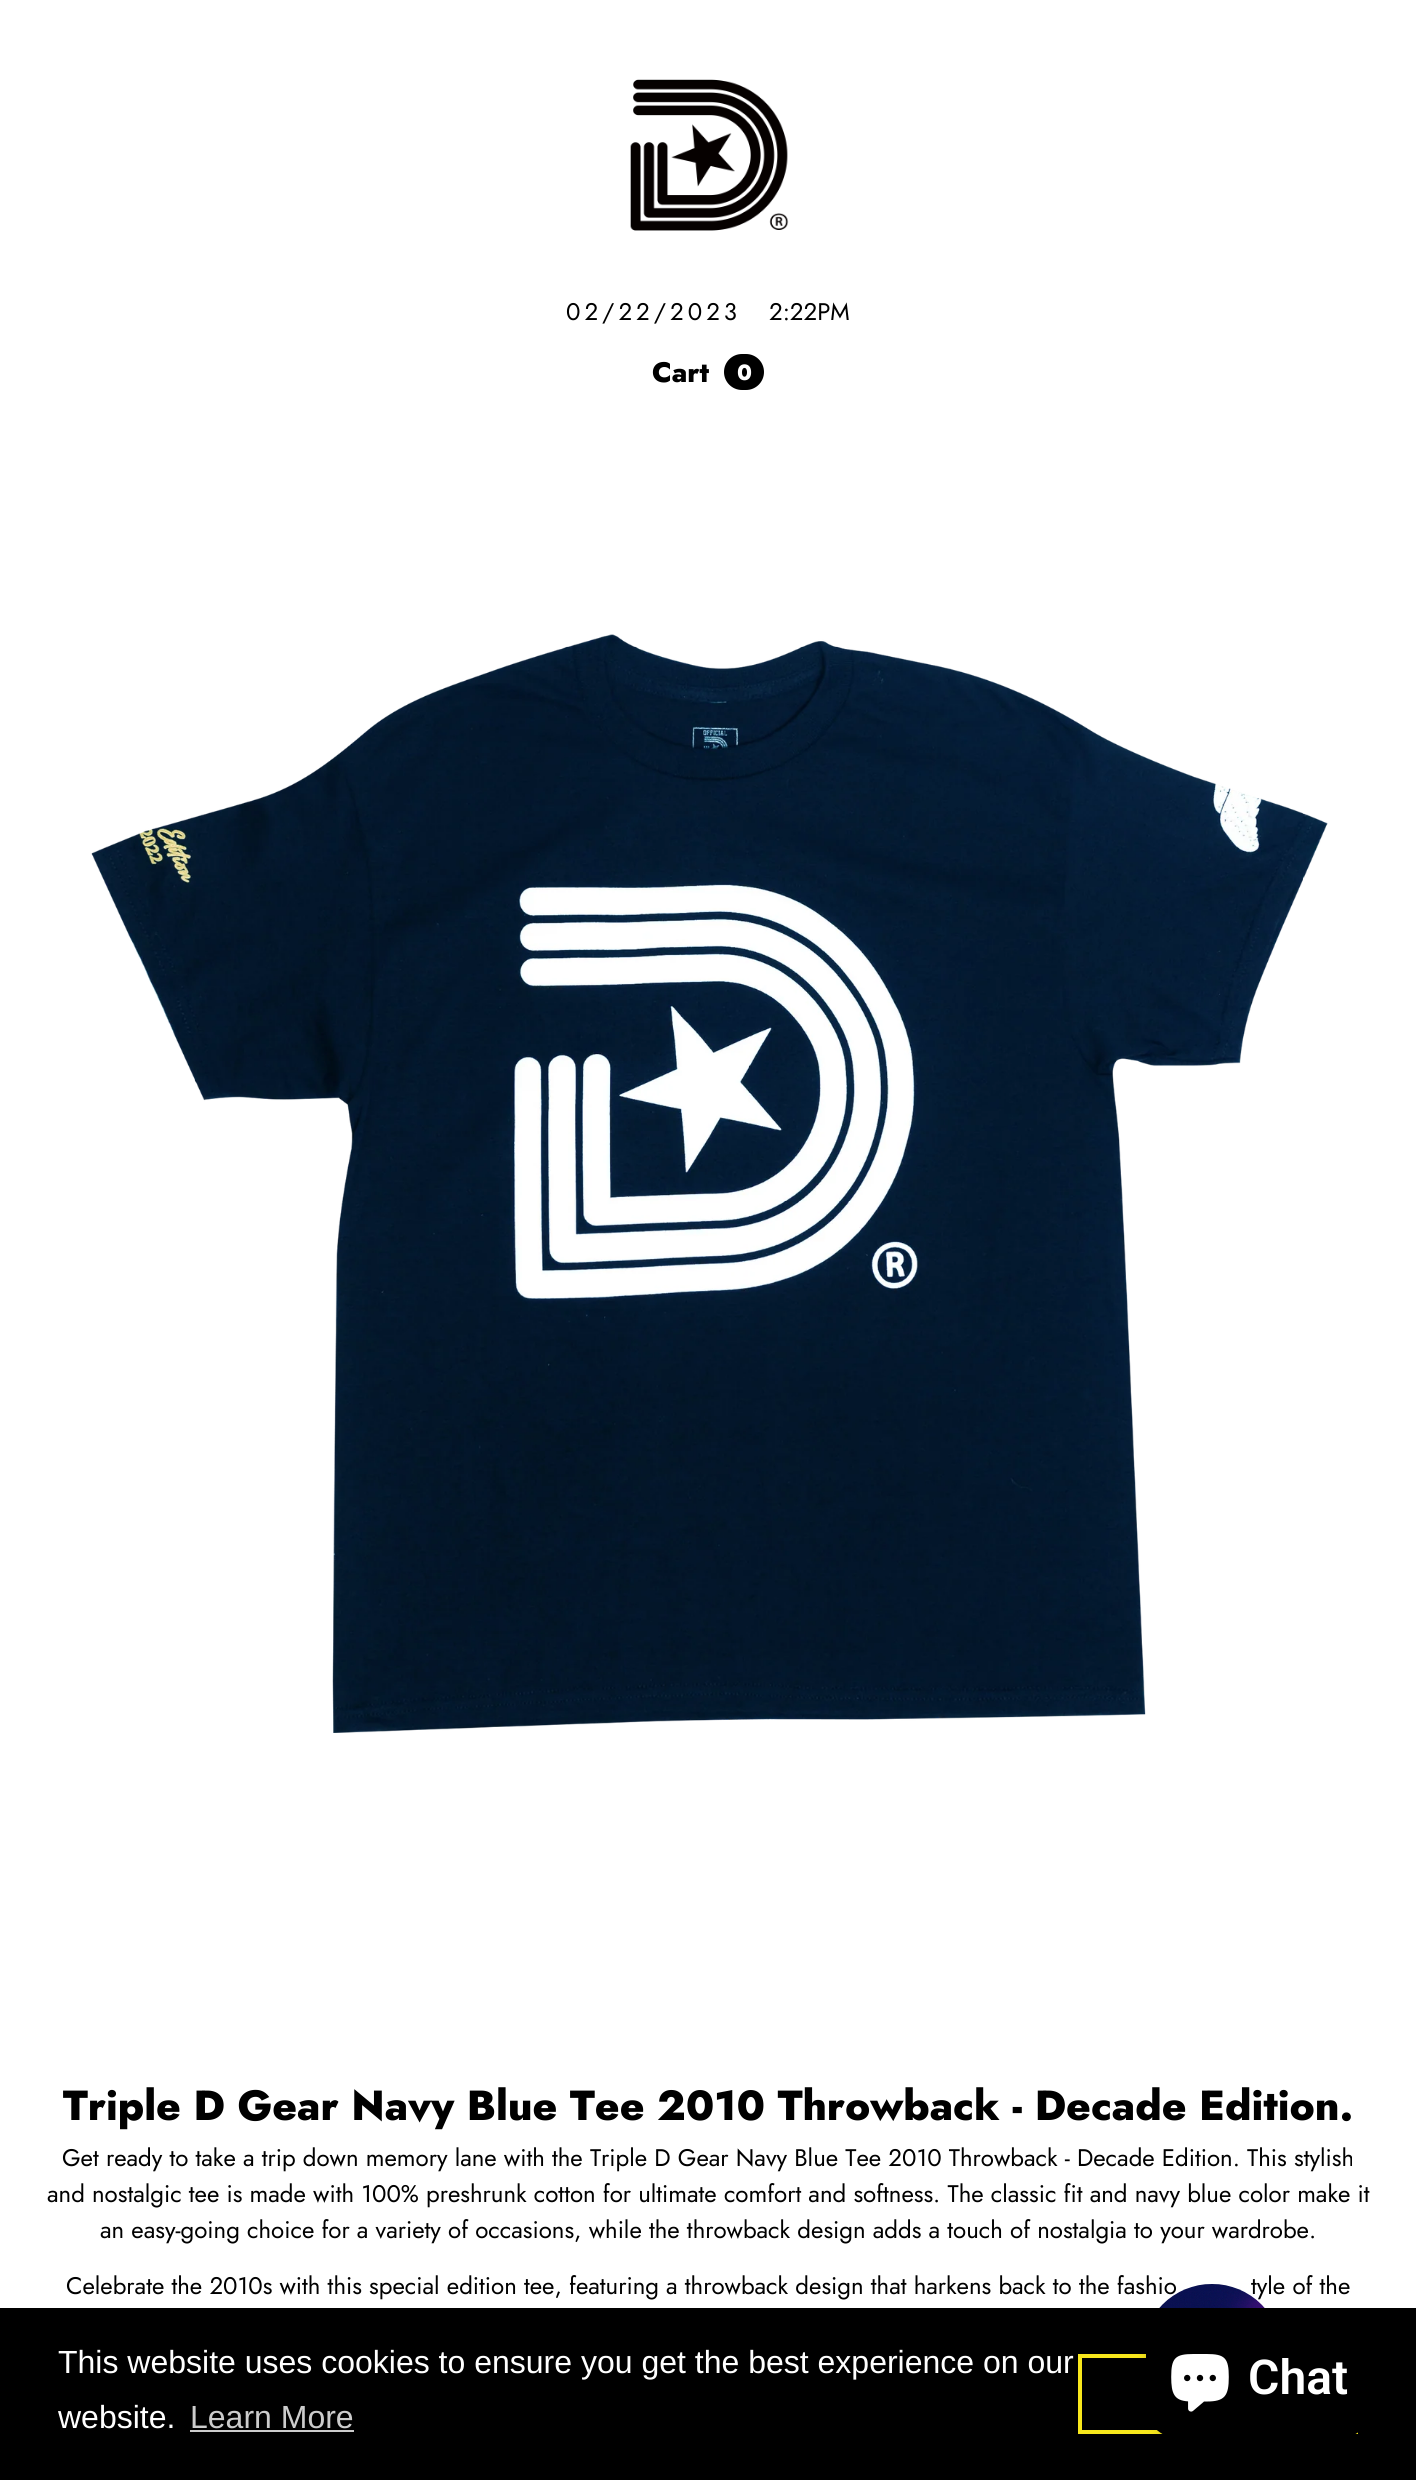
import math
import cairocffi as cairo

surface = cairo.ImageSurface(cairo.FORMAT_RGB24, 1416, 2480)
ctx = cairo.Context(surface)
options = cairo.FontOptions()
options.set_hint_metrics(cairo.HINT_METRICS_OFF)
options.set_hint_style(cairo.HINT_STYLE_NONE)
ctx.set_font_options(options)
ctx.set_miter_limit(4)


def rgb(r, g, b):
    ctx.set_source_rgb(r / 255, g / 255, b / 255)


def face(family, size, italic, bold):
    ctx.select_font_face(family, cairo.FONT_SLANT_ITALIC if italic else cairo.FONT_SLANT_NORMAL, cairo.FONT_WEIGHT_BOLD if bold else cairo.FONT_WEIGHT_NORMAL)
    ctx.set_font_size(size)


def label(x, y, s):
    ctx.move_to(x, y)
    ctx.show_text(s)


def tracked(x, y, s, letter, word):
    ctx.move_to(x, y)
    for ch in s:
        ctx.show_text(ch)
        ctx.rel_move_to(letter + word * (ch == ' '), 0)


def rect(x, y, w, h):
    ctx.rectangle(x, y, w, h)
    ctx.fill()


def rrect(x, y, w, h, r):
    ctx.new_sub_path()
    for i, (u, v) in enumerate([(x + w - r, y + h - r), (x + r, y + h - r), (x + r, y + r), (x + w - r, y + r)]):
        ctx.arc(u, v, r, i * math.pi / 2, (i + 1) * math.pi / 2)
    ctx.close_path()


def soft_shadow(x, y, w, h, r, blur, alpha):
    ctx.push_group_with_content(cairo.CONTENT_ALPHA)
    ctx.set_operator(cairo.OPERATOR_SOURCE)
    for i in range(15, -16, -2):
        e = blur * i / 6
        if min(w, h) + 2 * e > 0:
            ctx.set_source_rgba(0, 0, 0, alpha * math.erfc((i - 1) / 8.5) / 2)
            rrect(x - e, y - e, w + 2 * e, h + 2 * e, max(0, min(r + e + blur * .6, min(w, h) / 2 + e)))
            ctx.fill()
    ctx.mask(ctx.pop_group())


def image(path, x, y, w, h):
    ctx.save()
    ctx.set_source_surface(cairo.ImageSurface.create_from_png(path), x, y)
    ctx.rectangle(x, y, w, h)
    ctx.fill()
    ctx.restore()


rgb(255, 255, 255)
ctx.paint()
image('image0.png', 630, 79, 159, 152)
face('Jost', 24, 0, 0)
rgb(0, 0, 0)
tracked(566, 320, '02/22/2023', 4, 0)
label(769, 320, '2:22PM')
face('Jost ExtraBold', 28, 0, 0)
label(652, 382, 'Cart')
rrect(724, 354, 40, 36, 18)
ctx.fill()
face('Jost ExtraBold', 22, 0, 0)
rgb(255, 255, 255)
label(737, 380, '0')
image('image1.png', 91, 634, 1237, 1099)
face('Jost ExtraBold', 42, 0, 0)
rgb(0, 0, 0)
label(63, 2120, 'Triple D Gear Navy Blue Tee 2010 Throwback - Decade Edition.')
face('Jost', 24, 0, 0)
label(62, 2166, 'Get ready to take a trip down memory lane with the Triple D Gear Navy Blue Tee 2010 Throwback - Decade Edition. This stylish')
label(47, 2202, 'and nostalgic tee is made with 100% preshrunk cotton for ultimate comfort and softness. The classic fit and navy blue color make it')
label(100, 2238, 'an easy-going choice for a variety of occasions, while the throwback design adds a touch of nostalgia to your wardrobe.')
label(66, 2294, 'Celebrate the 2010s with this special edition tee, featuring a throwback design that harkens back to the fashio')
label(1251, 2294, 'tyle of the')
image('image2.png', 1159, 2284, 106, 24)
rect(0, 2308, 1416, 172)
face('Liberation Sans', 32, 0, 0)
rgb(255, 255, 255)
label(58, 2373, 'This website uses cookies to ensure you get the best experience on our')
label(58, 2428, 'website.')
rgb(204, 204, 204)
label(190, 2428, 'Learn More')
rect(190, 2430, 164, 2)
ctx.rectangle(1080, 2356, 276, 76)
rgb(248, 231, 28)
ctx.set_line_width(4)
ctx.stroke()
rgb(0, 0, 0)
soft_shadow(1146, 2318, 226, 120, 32, 5, 0.15)
rgb(0, 0, 0)
rrect(1146, 2318, 226, 120, 32)
ctx.fill()
image('image3.png', 1171, 2354, 58, 58)
face('Roboto SemiBold', 48, 0, 0)
rgb(255, 255, 255)
label(1248, 2394, 'Chat')
surface.write_to_png('render.png')
